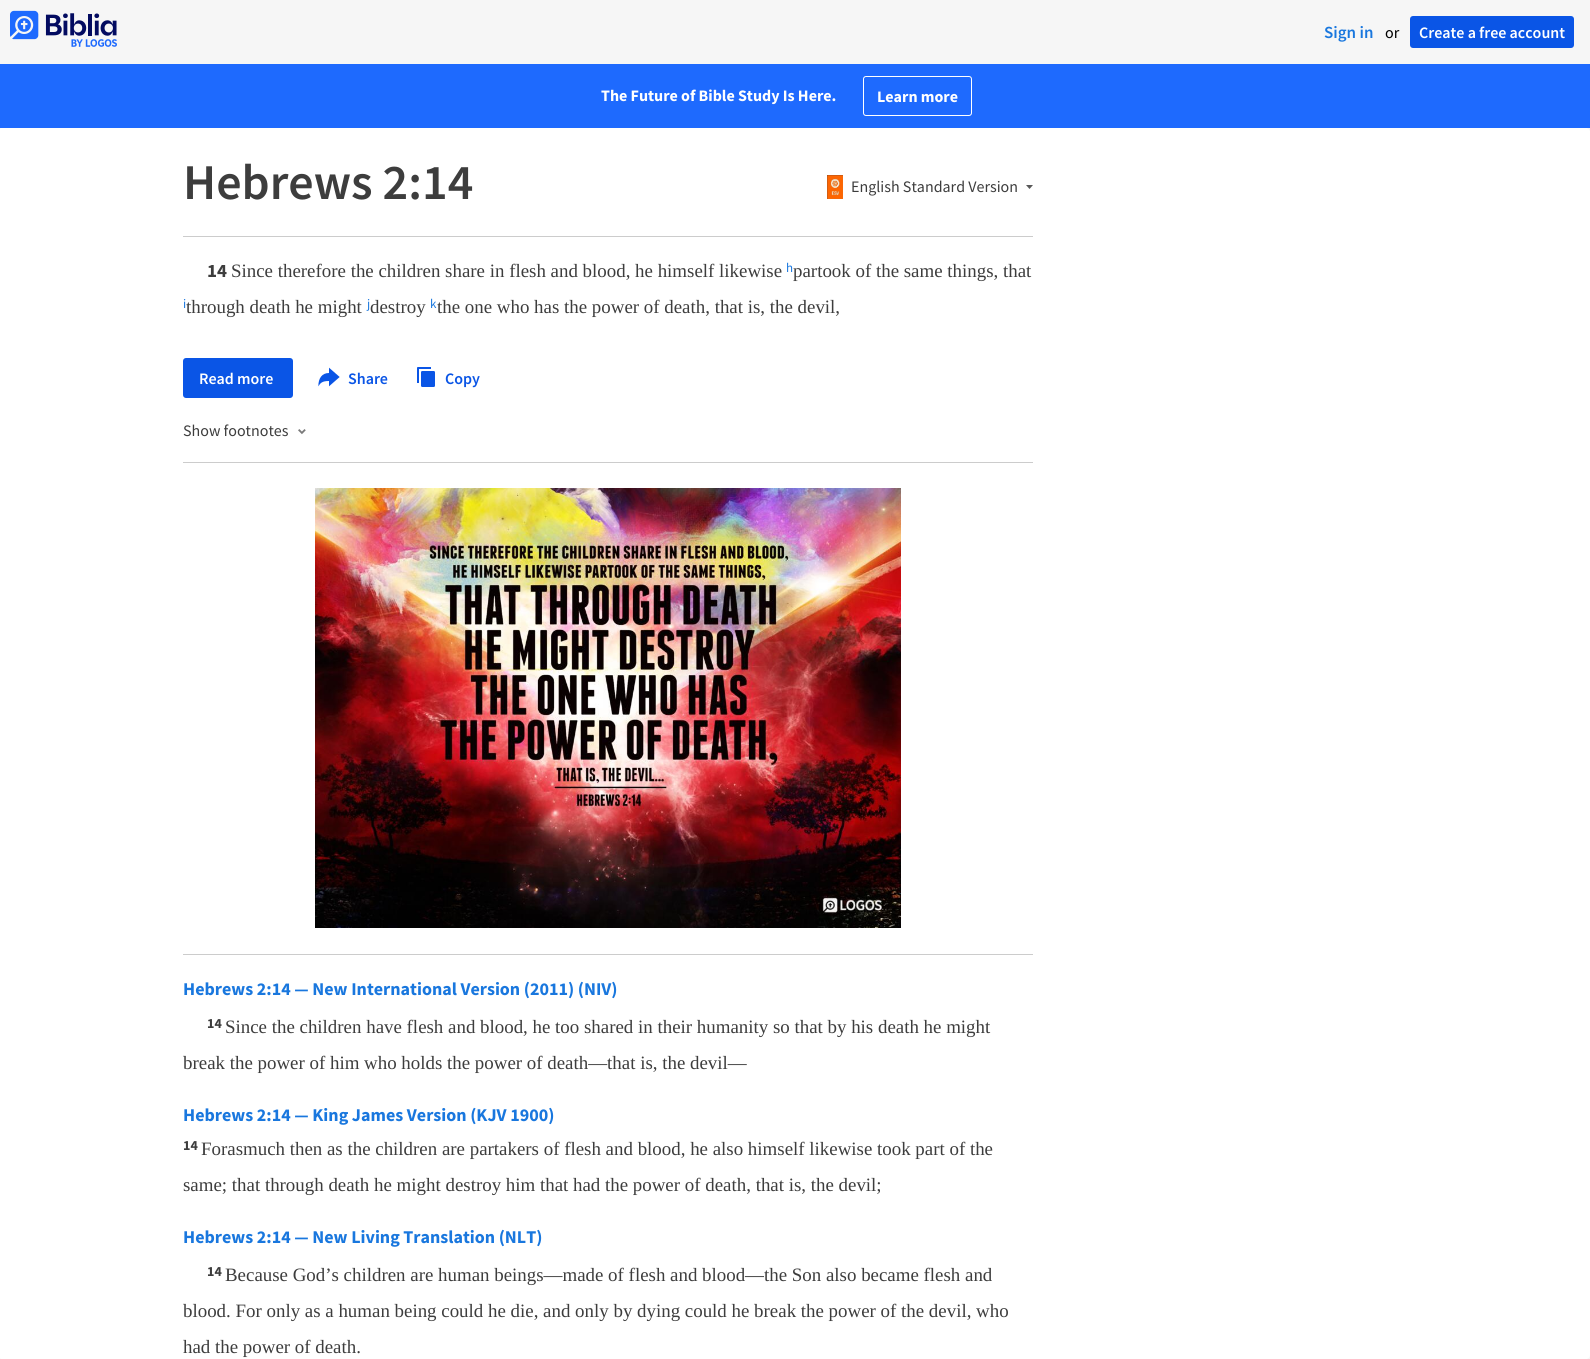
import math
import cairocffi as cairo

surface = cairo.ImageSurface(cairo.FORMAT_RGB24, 1590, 1359)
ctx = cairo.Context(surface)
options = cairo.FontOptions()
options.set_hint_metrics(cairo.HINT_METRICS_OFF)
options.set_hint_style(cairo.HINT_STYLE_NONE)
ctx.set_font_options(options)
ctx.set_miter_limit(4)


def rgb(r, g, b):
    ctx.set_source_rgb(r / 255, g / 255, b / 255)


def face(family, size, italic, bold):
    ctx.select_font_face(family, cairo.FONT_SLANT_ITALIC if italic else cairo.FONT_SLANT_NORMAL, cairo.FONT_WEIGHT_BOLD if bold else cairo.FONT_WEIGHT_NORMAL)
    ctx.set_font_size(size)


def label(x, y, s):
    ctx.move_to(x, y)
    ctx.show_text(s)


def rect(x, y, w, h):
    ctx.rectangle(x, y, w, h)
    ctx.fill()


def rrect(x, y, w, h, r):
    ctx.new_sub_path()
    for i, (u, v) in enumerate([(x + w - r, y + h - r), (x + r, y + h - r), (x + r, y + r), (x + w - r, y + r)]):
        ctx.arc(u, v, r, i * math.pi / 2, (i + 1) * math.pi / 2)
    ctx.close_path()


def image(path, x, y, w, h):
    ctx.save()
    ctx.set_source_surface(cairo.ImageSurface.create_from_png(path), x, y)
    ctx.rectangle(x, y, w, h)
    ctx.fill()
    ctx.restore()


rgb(246, 246, 246)
ctx.paint()
image('image0.png', 10, 10, 107, 37)
face('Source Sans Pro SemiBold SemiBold', 17, 0, 0)
rgb(25, 119, 222)
label(1324, 38, 'Sign in')
face('Source Sans Pro', 16, 0, 0)
rgb(0, 0, 0)
label(1385, 38, 'or')
rgb(10, 85, 230)
rrect(1410, 16, 164, 32, 3)
ctx.fill()
face('Source Sans Pro SemiBold SemiBold', 16, 0, 0)
rgb(255, 255, 255)
label(1419, 38, 'Create a free account')
rgb(30, 106, 254)
rect(0, 64, 1590, 64)
face('Source Sans Pro', 16, 0, 1)
rgb(255, 255, 255)
label(601, 101, 'The Future of Bible Study Is Here.')
rrect(863.5, 76.5, 108, 39, 2.5)
ctx.set_line_width(1)
ctx.stroke()
label(877, 102, 'Learn more')
rrect(-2, 128, 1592, 1231, 4)
ctx.fill()
rgb(204, 204, 204)
rect(183, 236, 850, 1)
face('Source Sans Pro SemiBold SemiBold', 50, 0, 0)
rgb(61, 61, 61)
label(183, 199, 'Hebrews 2:14')
image('image1.png', 827, 175, 16, 24)
face('Source Sans Pro', 16, 0, 0)
label(851, 192, 'English Standard Version')
rgb(88, 88, 88)
ctx.set_fill_rule(cairo.FILL_RULE_EVEN_ODD)
ctx.new_path()
ctx.move_to(1029.5, 189)
ctx.line_to(1033, 185)
ctx.line_to(1026, 185)
ctx.close_path()
ctx.fill()
face('Source Sans Pro', 18.9, 0, 1)
rgb(61, 61, 61)
label(207, 277, '14')
face('Liberation Serif', 18.9, 0, 0)
label(231, 277, 'Since therefore the children share in flesh and blood, he himself likewise')
face('Source Sans Pro', 13, 0, 0)
rgb(25, 119, 222)
label(786, 272, 'h')
face('Liberation Serif', 18.9, 0, 0)
rgb(61, 61, 61)
label(793, 277, 'partook of the same things, that')
face('Source Sans Pro', 13, 0, 0)
rgb(25, 119, 222)
label(183, 308, 'i')
face('Liberation Serif', 18.9, 0, 0)
rgb(61, 61, 61)
label(186, 313, 'through death he might')
face('Source Sans Pro', 13, 0, 0)
rgb(25, 119, 222)
label(367, 308, 'j')
face('Liberation Serif', 18.9, 0, 0)
rgb(61, 61, 61)
label(370, 313, 'destroy')
face('Source Sans Pro', 13, 0, 0)
rgb(25, 119, 222)
label(430, 308, 'k')
face('Liberation Serif', 18.9, 0, 0)
rgb(61, 61, 61)
label(437, 313, 'the one who has the power of death, that is, the devil,')
rgb(10, 85, 230)
rrect(183, 358, 110, 40, 3)
ctx.fill()
face('Source Sans Pro SemiBold SemiBold', 16, 0, 0)
rgb(255, 255, 255)
label(199, 384, 'Read more')
image('image2.png', 318, 367, 22, 20)
rgb(10, 85, 230)
label(348, 384, 'Share')
image('image3.png', 417, 367, 18, 20)
label(445, 384, 'Copy')
face('Source Sans Pro', 16, 0, 0)
rgb(61, 61, 61)
label(183, 436, 'Show footnotes')
image('image4.png', 298, 429, 8, 6)
rgb(204, 204, 204)
rect(183, 462, 850, 1)
image('image5.png', 315, 488, 586, 440)
rect(183, 954, 850, 1)
face('Source Sans Pro', 18, 0, 1)
rgb(25, 119, 222)
label(183, 995, 'Hebrews 2:14 — New International Version (2011) (NIV)')
face('Source Sans Pro', 14, 0, 1)
rgb(61, 61, 61)
label(207, 1028, '14')
face('Liberation Serif', 18.9, 0, 0)
label(225, 1033, 'Since the children have flesh and blood, he too shared in their humanity so that by his death he might')
label(183, 1069, 'break the power of him who holds the power of death—that is, the devil—')
face('Source Sans Pro', 18, 0, 1)
rgb(25, 119, 222)
label(183, 1121, 'Hebrews 2:14 — King James Version (KJV 1900)')
face('Source Sans Pro', 14, 0, 1)
rgb(61, 61, 61)
label(183, 1150, '14')
face('Liberation Serif', 18.9, 0, 0)
label(201, 1155, 'Forasmuch then as the children are partakers of flesh and blood, he also himself likewise took part of the')
label(183, 1191, 'same; that through death he might destroy him that had the power of death, that is, the devil;')
face('Source Sans Pro', 18, 0, 1)
rgb(25, 119, 222)
label(183, 1243, 'Hebrews 2:14 — New Living Translation (NLT)')
face('Source Sans Pro', 14, 0, 1)
rgb(61, 61, 61)
label(207, 1276, '14')
face('Liberation Serif', 18.9, 0, 0)
label(225, 1281, 'Because God’s children are human beings—made of flesh and blood—the Son also became flesh and')
label(183, 1317, 'blood. For only as a human being could he die, and only by dying could he break the power of the devil, who')
label(183, 1353, 'had the power of death.')
surface.write_to_png('render.png')
